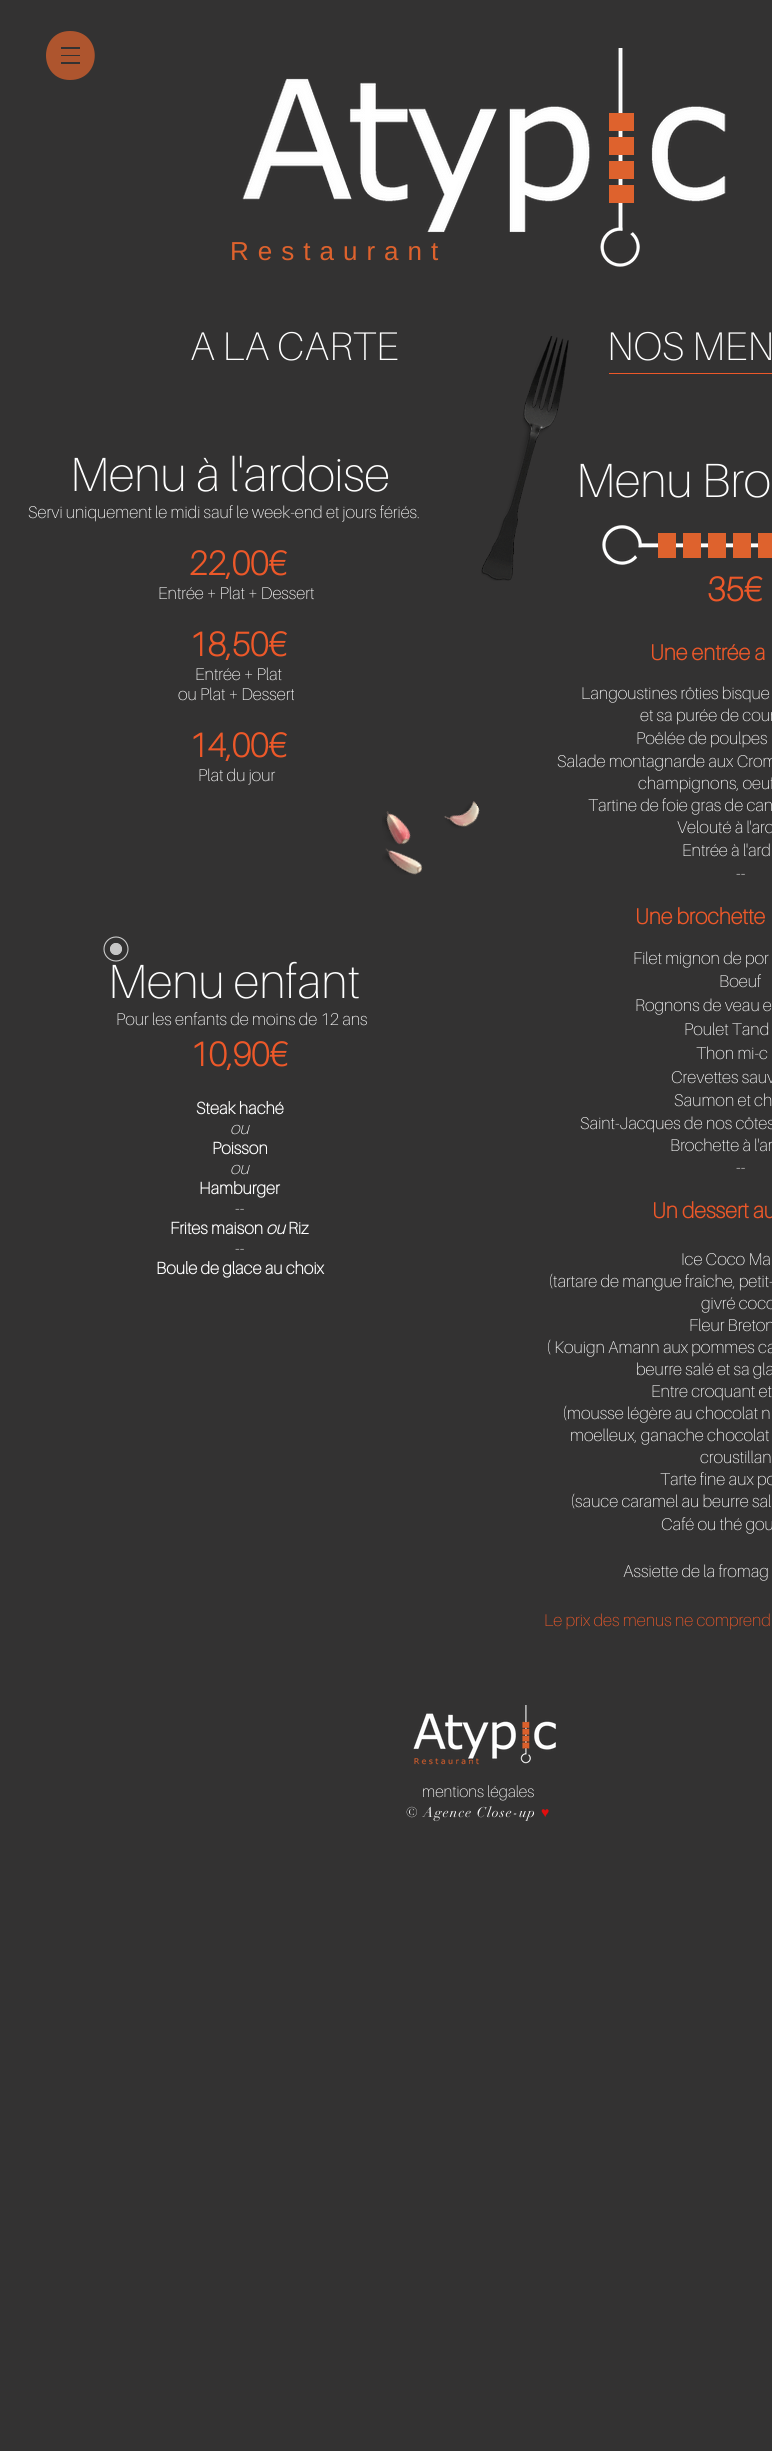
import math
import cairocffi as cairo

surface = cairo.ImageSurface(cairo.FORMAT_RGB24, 772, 2451)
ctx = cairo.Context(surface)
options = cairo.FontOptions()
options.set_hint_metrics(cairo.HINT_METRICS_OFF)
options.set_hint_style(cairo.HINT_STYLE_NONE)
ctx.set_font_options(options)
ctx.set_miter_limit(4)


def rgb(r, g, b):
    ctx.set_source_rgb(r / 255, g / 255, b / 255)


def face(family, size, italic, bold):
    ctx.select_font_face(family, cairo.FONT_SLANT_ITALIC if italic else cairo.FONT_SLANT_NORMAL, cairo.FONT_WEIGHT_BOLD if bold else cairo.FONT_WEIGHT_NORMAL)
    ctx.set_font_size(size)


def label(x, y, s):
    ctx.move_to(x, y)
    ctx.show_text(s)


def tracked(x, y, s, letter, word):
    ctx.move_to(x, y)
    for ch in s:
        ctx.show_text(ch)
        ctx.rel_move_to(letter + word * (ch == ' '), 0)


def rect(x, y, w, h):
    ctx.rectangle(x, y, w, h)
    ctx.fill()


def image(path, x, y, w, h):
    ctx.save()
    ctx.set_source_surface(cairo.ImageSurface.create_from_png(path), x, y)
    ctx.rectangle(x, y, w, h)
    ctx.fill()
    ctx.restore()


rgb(51, 50, 50)
ctx.paint()
rgb(174, 85, 46)
ctx.new_path()
ctx.move_to(70, 31)
ctx.curve_to(38, 31, 38, 80, 70, 80)
ctx.curve_to(103, 80, 103, 31, 70, 31)
ctx.close_path()
ctx.move_to(80, 64)
ctx.line_to(61, 64)
ctx.line_to(61, 62)
ctx.line_to(80, 62)
ctx.close_path()
ctx.move_to(80, 56)
ctx.line_to(61, 56)
ctx.line_to(61, 55)
ctx.line_to(80, 55)
ctx.close_path()
ctx.move_to(80, 49)
ctx.line_to(61, 49)
ctx.line_to(61, 47)
ctx.line_to(80, 47)
ctx.close_path()
ctx.fill()
image('image1.png', 242, 78, 484, 155)
image('image0.png', 600, 48, 40, 219)
rgb(222, 98, 45)
rect(609, 113, 25, 18)
rect(609, 137, 25, 18)
rect(609, 161, 25, 18)
rect(609, 185, 25, 18)
face('Liberation Sans', 26, 0, 0)
tracked(230, 260, 'Restaurant', 9, 0)
face('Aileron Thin', 40, 0, 0)
rgb(255, 255, 255)
label(190, 360, 'A LA CARTE')
image('image2.png', 481, 336, 88, 245)
label(607, 360, 'NOS MEN')
rgb(237, 88, 41)
rect(609, 373, 163, 1)
face('Aileron Thin', 48, 0, 0)
rgb(255, 255, 255)
label(70, 491, 'Menu à l\'ardoise')
face('Aileron Thin', 17, 0, 0)
label(28, 518, 'Servi uniquement le midi sauf le week-end et jours fériés.')
face('Aileron', 34, 0, 1)
rgb(237, 88, 41)
label(189, 575, '22,00€')
face('Aileron Thin', 17, 0, 0)
rgb(255, 255, 255)
label(158, 599, 'Entrée + Plat + Dessert')
face('Aileron', 34, 0, 1)
rgb(237, 88, 41)
label(189, 656, '18,50€')
face('Aileron Thin', 17, 0, 0)
rgb(255, 255, 255)
label(195, 680, 'Entrée + Plat')
label(178, 700, 'ou Plat + Dessert')
face('Aileron', 34, 0, 1)
rgb(237, 88, 41)
label(189, 757, '14,00€')
face('Aileron Thin', 17, 0, 0)
rgb(255, 255, 255)
label(198, 781, 'Plat du jour')
face('Aileron Thin', 48, 0, 0)
label(576, 497, 'Menu Bro')
image('image3.png', 602, 525, 156, 40)
rgb(222, 98, 45)
rect(658, 533, 18, 25)
rect(683, 533, 18, 25)
rect(708, 533, 18, 25)
rect(733, 533, 18, 25)
rect(758, 533, 14, 25)
face('Aileron', 34, 0, 1)
rgb(237, 88, 41)
label(707, 601, '35€')
image('image4.png', 382, 801, 98, 74)
face('Aileron', 22, 0, 1)
label(650, 660, 'Une entrée a')
face('Aileron Thin', 17, 0, 0)
rgb(255, 255, 255)
label(581, 699, 'Langoustines rôties bisque')
label(640, 721, 'et sa purée de cour')
label(636, 744, 'Poêlée de poulpes')
label(557, 767, 'Salade montagnarde aux Crom')
label(638, 789, 'champignons, oeuf')
label(588, 811, 'Tartine de foie gras de can')
label(677, 833, 'Velouté à l\'ard')
label(682, 856, 'Entrée à l\'ard')
label(736, 879, '--')
face('Aileron', 22, 0, 1)
rgb(237, 88, 41)
label(635, 924, 'Une brochette')
face('Aileron Thin', 17, 0, 0)
rgb(255, 255, 255)
label(633, 964, 'Filet mignon de por')
label(719, 987, 'Boeuf')
label(635, 1011, 'Rognons de veau e')
label(684, 1035, 'Poulet Tand')
label(696, 1059, 'Thon mi-c')
label(671, 1083, 'Crevettes sauv')
label(674, 1106, 'Saumon et ch')
label(580, 1129, 'Saint-Jacques de nos côtes')
label(670, 1151, 'Brochette à l\'ar')
label(736, 1173, '--')
face('Aileron', 22, 0, 1)
rgb(237, 88, 41)
label(652, 1218, 'Un dessert au')
face('Aileron Thin', 17, 0, 0)
rgb(255, 255, 255)
label(681, 1265, 'Ice Coco Ma')
label(548, 1287, '(tartare de mangue fraîche, petit-')
label(701, 1309, 'givré coco')
label(689, 1331, 'Fleur Breton')
label(546, 1353, '( Kouign Amann aux pommes ca')
label(636, 1375, 'beurre salé et sa gla')
label(651, 1397, 'Entre croquant et')
label(562, 1419, '(mousse légère au chocolat n')
label(570, 1441, 'moelleux, ganache chocolat')
label(700, 1463, 'croustillan')
label(660, 1485, 'Tarte fine aux po')
label(570, 1507, '(sauce caramel au beurre sal')
label(661, 1530, 'Café ou thé gou')
label(623, 1577, 'Assiette de la fromag')
rgb(237, 88, 41)
label(544, 1626, 'Le prix des menus ne comprend')
face('Aileron Thin', 48, 0, 0)
rgb(255, 255, 255)
label(108, 998, 'Menu enfant')
face('Aileron Thin', 17, 0, 0)
label(116, 1025, 'Pour les enfants de moins de 12 ans')
face('Aileron', 34, 0, 1)
rgb(237, 88, 41)
label(190, 1066, '10,90€')
face('Aileron', 17, 0, 1)
rgb(255, 255, 255)
label(196, 1114, 'Steak haché')
face('Aileron Thin', 17, 1, 0)
label(230, 1134, 'ou')
face('Aileron', 17, 0, 1)
label(212, 1154, 'Poisson')
face('Aileron Thin', 17, 1, 0)
label(230, 1174, 'ou')
face('Aileron', 17, 0, 1)
label(199, 1194, 'Hamburger')
face('Aileron Thin', 17, 0, 0)
label(235, 1214, '--')
face('Aileron', 17, 0, 1)
label(170, 1234, 'Frites maison')
face('Aileron', 17, 1, 1)
label(266, 1234, 'ou')
face('Aileron', 17, 0, 1)
label(288, 1234, 'Riz')
face('Aileron Thin', 17, 0, 0)
label(235, 1254, '--')
face('Aileron', 17, 0, 1)
label(156, 1274, 'Boule de glace au choix')
ctx.new_path()
ctx.arc(116, 949, 12, 0, 2 * math.pi)
rgb(204, 204, 204)
ctx.set_line_width(1.1)
ctx.stroke()
ctx.arc(116, 949, 5.5, 0, 2 * math.pi)
rgb(199, 199, 199)
ctx.stroke()
ctx.arc(116, 949, 5.5, 0, 2 * math.pi)
ctx.fill_preserve()
ctx.set_line_width(0.5)
ctx.stroke()
image('image5.png', 413, 1705, 143, 60)
face('Aileron Thin', 16, 0, 0)
rgb(255, 255, 255)
label(422, 1797, 'mentions légales')
face('didot', 14, 0, 0)
tracked(406, 1817, '© Agence Close-up', 1.1, 0)
face('Liberation Serif', 14, 0, 0)
rgb(226, 13, 13)
tracked(541, 1817, '♥', 1.1, 0)
surface.write_to_png('render.png')
